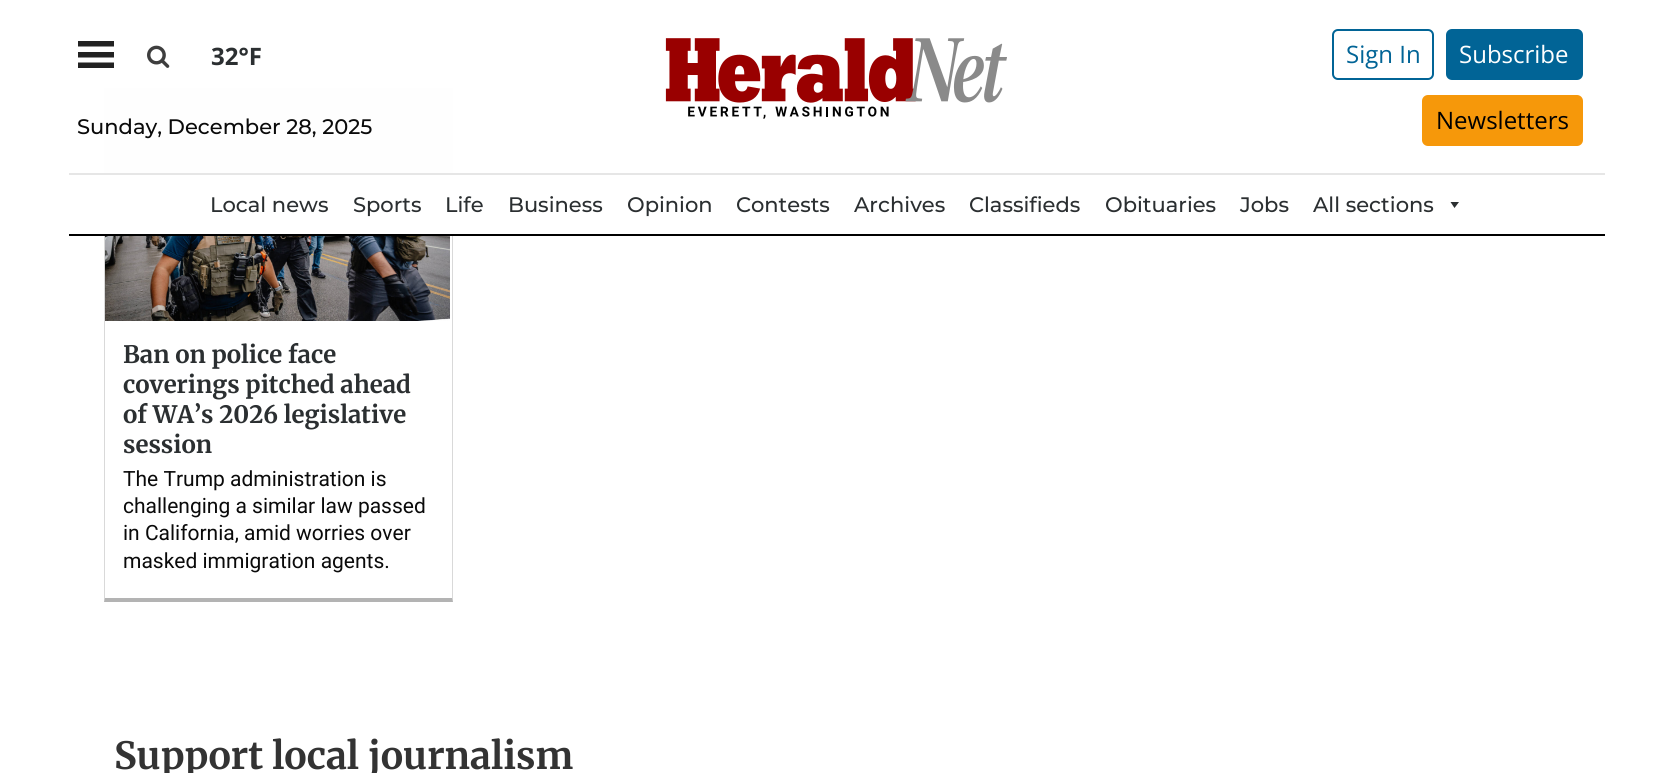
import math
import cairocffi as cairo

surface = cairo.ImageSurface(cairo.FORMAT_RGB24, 1674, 773)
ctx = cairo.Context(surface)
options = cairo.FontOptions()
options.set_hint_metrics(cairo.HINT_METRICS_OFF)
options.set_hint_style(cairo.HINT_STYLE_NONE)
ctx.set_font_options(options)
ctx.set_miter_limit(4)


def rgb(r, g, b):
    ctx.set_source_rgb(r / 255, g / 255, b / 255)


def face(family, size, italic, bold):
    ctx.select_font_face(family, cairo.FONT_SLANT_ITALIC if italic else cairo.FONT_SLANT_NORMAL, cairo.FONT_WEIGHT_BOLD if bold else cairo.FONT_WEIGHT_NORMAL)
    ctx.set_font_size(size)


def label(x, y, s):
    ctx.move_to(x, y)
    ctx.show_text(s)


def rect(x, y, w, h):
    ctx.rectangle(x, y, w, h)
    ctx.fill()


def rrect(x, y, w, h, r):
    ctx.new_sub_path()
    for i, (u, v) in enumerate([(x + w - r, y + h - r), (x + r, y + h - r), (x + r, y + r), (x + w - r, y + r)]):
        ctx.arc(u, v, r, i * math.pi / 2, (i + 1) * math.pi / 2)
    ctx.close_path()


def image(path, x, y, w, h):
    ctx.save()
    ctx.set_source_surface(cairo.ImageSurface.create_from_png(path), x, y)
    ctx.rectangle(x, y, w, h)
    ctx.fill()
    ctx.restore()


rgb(255, 255, 255)
ctx.paint()
ctx.set_source_rgba(0, 0, 0, 0.15)
ctx.new_path()
ctx.move_to(453, 88)
ctx.line_to(453, 602)
ctx.line_to(452, 598)
ctx.line_to(452, 90)
ctx.close_path()
ctx.fill()
ctx.set_source_rgba(0, 0, 0, 0.3)
ctx.new_path()
ctx.move_to(453, 602)
ctx.line_to(104, 602)
ctx.line_to(105, 598)
ctx.line_to(452, 598)
ctx.close_path()
ctx.fill()
ctx.set_source_rgba(0, 0, 0, 0.15)
ctx.new_path()
ctx.move_to(104, 602)
ctx.line_to(104, 88)
ctx.line_to(105, 90)
ctx.line_to(105, 598)
ctx.close_path()
ctx.fill()
rgb(0, 0, 0)
rect(69, 234, 1536, 2)
rgb(34, 34, 34)
ctx.new_path()
ctx.move_to(114, 46.5)
ctx.line_to(114, 41)
ctx.line_to(78, 41)
ctx.line_to(78, 46.5)
ctx.close_path()
ctx.move_to(114, 57.5)
ctx.line_to(114, 52)
ctx.line_to(78, 52)
ctx.line_to(78, 57.5)
ctx.close_path()
ctx.move_to(114, 68)
ctx.line_to(114, 62.5)
ctx.line_to(78, 62.5)
ctx.line_to(78, 68)
ctx.close_path()
ctx.fill()
image('image0.png', 147, 45, 23, 23)
face('Open Sans', 24, 0, 1)
rgb(43, 47, 49)
label(211, 65, '32°F')
rgb(254, 254, 254)
rect(104, 88, 349, 85)
face('Montserrat Medium', 21, 0, 0)
rgb(10, 10, 10)
label(77, 134, 'Sunday, December 28, 2025')
image('image1.png', 665, 38, 342, 81)
rrect(1333, 30, 100, 49, 5)
rgb(1, 100, 150)
ctx.stroke()
face('Open Sans', 24, 0, 0)
label(1346, 63, 'Sign In')
rrect(1447, 30, 135, 49, 5)
ctx.fill_preserve()
ctx.stroke()
rgb(255, 255, 255)
label(1459, 63, 'Subscribe')
rgb(246, 152, 10)
rrect(1423, 96, 159, 49, 5)
ctx.fill_preserve()
ctx.stroke()
rgb(0, 0, 0)
label(1436, 129, 'Newsletters')
rgb(255, 255, 255)
rect(104, 175, 349, 59)
rgb(230, 230, 230)
rect(69, 173, 1536, 2)
face('Montserrat Medium', 21, 0, 0)
rgb(43, 47, 49)
label(210, 212, 'Local news')
label(353, 212, 'Sports')
label(445, 212, 'Life')
label(508, 212, 'Business')
label(627, 212, 'Opinion')
label(736, 212, 'Contests')
label(854, 212, 'Archives')
label(969, 212, 'Classifieds')
label(1105, 212, 'Obituaries')
label(1240, 212, 'Jobs')
label(1313, 212, 'All sections')
ctx.new_path()
ctx.move_to(1459, 202)
ctx.line_to(1454.5, 208)
ctx.line_to(1450.5, 202)
ctx.close_path()
ctx.fill()
image('image2.png', 105, 236, 345, 85)
face('Merriweather', 24, 0, 1)
label(123, 363, 'Ban on police face')
label(123, 393, 'coverings pitched ahead')
label(123, 423, 'of WA’s 2026 legislative')
label(123, 453, 'session')
face('Roboto', 21, 0, 0)
rgb(10, 10, 10)
label(123, 486, 'The Trump administration is')
label(123, 513, 'challenging a similar law passed')
label(123, 540, 'in California, amid worries over')
label(123, 568, 'masked immigration agents.')
face('Merriweather', 37.5, 0, 1)
rgb(51, 51, 51)
label(114, 769, 'Support local journalism')
surface.write_to_png('render.png')
